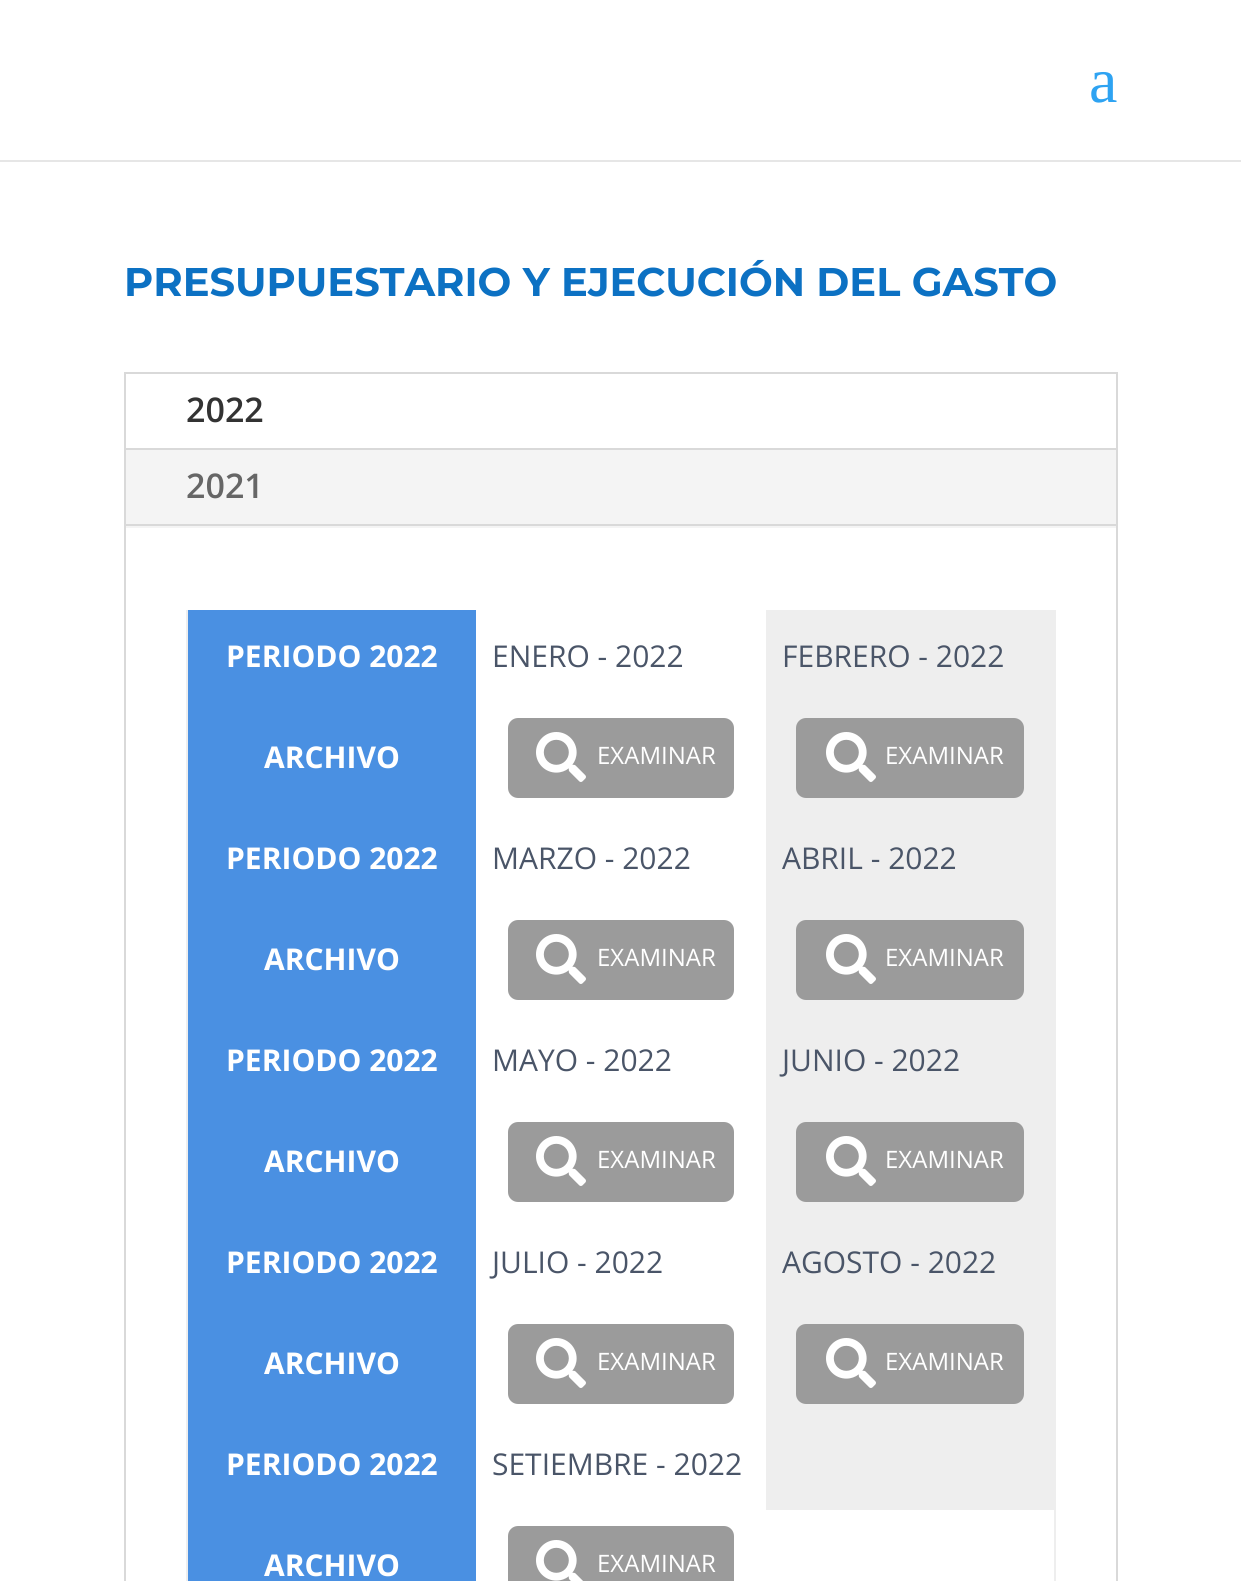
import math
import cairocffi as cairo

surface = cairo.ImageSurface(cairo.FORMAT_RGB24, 1241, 1581)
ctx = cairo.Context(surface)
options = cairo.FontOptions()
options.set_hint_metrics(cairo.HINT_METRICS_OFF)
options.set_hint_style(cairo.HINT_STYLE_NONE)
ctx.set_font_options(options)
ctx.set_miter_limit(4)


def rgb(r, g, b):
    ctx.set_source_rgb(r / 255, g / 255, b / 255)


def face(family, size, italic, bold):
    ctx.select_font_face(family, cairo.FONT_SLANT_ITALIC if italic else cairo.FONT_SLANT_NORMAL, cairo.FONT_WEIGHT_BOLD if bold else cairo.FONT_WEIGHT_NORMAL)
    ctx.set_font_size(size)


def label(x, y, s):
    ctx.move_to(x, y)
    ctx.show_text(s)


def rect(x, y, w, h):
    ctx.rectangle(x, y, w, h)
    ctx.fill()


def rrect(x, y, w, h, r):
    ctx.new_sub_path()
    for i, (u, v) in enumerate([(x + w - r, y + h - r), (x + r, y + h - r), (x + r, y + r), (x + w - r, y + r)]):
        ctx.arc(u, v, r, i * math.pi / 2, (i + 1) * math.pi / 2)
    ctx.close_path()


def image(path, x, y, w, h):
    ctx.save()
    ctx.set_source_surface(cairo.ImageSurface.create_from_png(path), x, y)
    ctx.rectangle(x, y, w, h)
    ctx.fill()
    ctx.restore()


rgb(255, 255, 255)
ctx.paint()
rgb(230, 230, 230)
rect(0, 160, 1241, 2)
face('Liberation Serif', 64, 0, 0)
rgb(46, 163, 242)
label(1089, 102, 'a')
face('Montserrat', 40, 0, 1)
rgb(12, 113, 195)
label(124, 296, 'PRESUPUESTARIO Y EJECUCIÓN DEL GASTO')
ctx.rectangle(125, 373, 992, 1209)
rgb(217, 217, 217)
ctx.stroke()
rgb(244, 244, 244)
rect(126, 450, 990, 78)
rgb(217, 217, 217)
rect(126, 448, 990, 2)
face('Open Sans SemiBold', 34, 0, 0)
rgb(51, 51, 51)
label(186, 422, '2022')
rgb(102, 102, 102)
label(186, 498, '2021')
rgb(217, 217, 217)
rect(126, 524, 990, 2)
rgb(238, 238, 238)
rect(766, 610, 290, 2)
rect(1054, 610, 2, 971)
rect(186, 610, 2, 971)
rect(766, 612, 288, 90)
rgb(74, 144, 226)
rect(188, 610, 288, 971)
face('Open Sans', 30, 0, 1)
rgb(255, 255, 255)
label(226, 667, 'PERIODO 2022')
face('Open Sans', 30, 0, 0)
rgb(74, 85, 104)
label(492, 667, 'ENERO - 2022')
label(782, 667, 'FEBRERO - 2022')
face('Open Sans', 30, 0, 1)
rgb(255, 255, 255)
label(264, 768, 'ARCHIVO')
rgb(155, 155, 155)
rrect(508, 718, 226, 80, 10)
ctx.fill()
image('image0.png', 536, 732, 50, 50)
face('Open Sans', 24, 0, 0)
rgb(255, 255, 255)
label(597, 764, 'EXAMINAR')
rgb(238, 238, 238)
rect(766, 702, 288, 202)
rgb(155, 155, 155)
rrect(796, 718, 228, 80, 10)
ctx.fill()
image('image0.png', 826, 732, 50, 50)
rgb(255, 255, 255)
label(885, 764, 'EXAMINAR')
face('Open Sans', 30, 0, 1)
label(226, 869, 'PERIODO 2022')
face('Open Sans', 30, 0, 0)
rgb(74, 85, 104)
label(492, 869, 'MARZO - 2022')
label(782, 869, 'ABRIL - 2022')
face('Open Sans', 30, 0, 1)
rgb(255, 255, 255)
label(264, 970, 'ARCHIVO')
rgb(155, 155, 155)
rrect(508, 920, 226, 80, 10)
ctx.fill()
image('image0.png', 536, 934, 50, 50)
face('Open Sans', 24, 0, 0)
rgb(255, 255, 255)
label(597, 966, 'EXAMINAR')
rgb(238, 238, 238)
rect(766, 904, 288, 202)
rgb(155, 155, 155)
rrect(796, 920, 228, 80, 10)
ctx.fill()
image('image0.png', 826, 934, 50, 50)
rgb(255, 255, 255)
label(885, 966, 'EXAMINAR')
face('Open Sans', 30, 0, 1)
label(226, 1071, 'PERIODO 2022')
face('Open Sans', 30, 0, 0)
rgb(74, 85, 104)
label(492, 1071, 'MAYO - 2022')
label(782, 1071, 'JUNIO - 2022')
face('Open Sans', 30, 0, 1)
rgb(255, 255, 255)
label(264, 1172, 'ARCHIVO')
rgb(155, 155, 155)
rrect(508, 1122, 226, 80, 10)
ctx.fill()
image('image0.png', 536, 1136, 50, 50)
face('Open Sans', 24, 0, 0)
rgb(255, 255, 255)
label(597, 1168, 'EXAMINAR')
rgb(238, 238, 238)
rect(766, 1106, 288, 202)
rgb(155, 155, 155)
rrect(796, 1122, 228, 80, 10)
ctx.fill()
image('image0.png', 826, 1136, 50, 50)
rgb(255, 255, 255)
label(885, 1168, 'EXAMINAR')
face('Open Sans', 30, 0, 1)
label(226, 1273, 'PERIODO 2022')
face('Open Sans', 30, 0, 0)
rgb(74, 85, 104)
label(492, 1273, 'JULIO - 2022')
label(782, 1273, 'AGOSTO - 2022')
face('Open Sans', 30, 0, 1)
rgb(255, 255, 255)
label(264, 1374, 'ARCHIVO')
rgb(155, 155, 155)
rrect(508, 1324, 226, 80, 10)
ctx.fill()
image('image0.png', 536, 1338, 50, 50)
face('Open Sans', 24, 0, 0)
rgb(255, 255, 255)
label(597, 1370, 'EXAMINAR')
rgb(238, 238, 238)
rect(766, 1308, 288, 202)
rgb(155, 155, 155)
rrect(796, 1324, 228, 80, 10)
ctx.fill()
image('image0.png', 826, 1338, 50, 50)
rgb(255, 255, 255)
label(885, 1370, 'EXAMINAR')
face('Open Sans', 30, 0, 1)
label(226, 1475, 'PERIODO 2022')
face('Open Sans', 30, 0, 0)
rgb(74, 85, 104)
label(492, 1475, 'SETIEMBRE - 2022')
face('Open Sans', 30, 0, 1)
rgb(255, 255, 255)
label(264, 1576, 'ARCHIVO')
rgb(155, 155, 155)
rrect(508, 1526, 226, 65, 10)
ctx.fill()
image('image1.png', 536, 1540, 47, 41)
face('Open Sans', 24, 0, 0)
rgb(255, 255, 255)
label(597, 1572, 'EXAMINAR')
surface.write_to_png('render.png')
